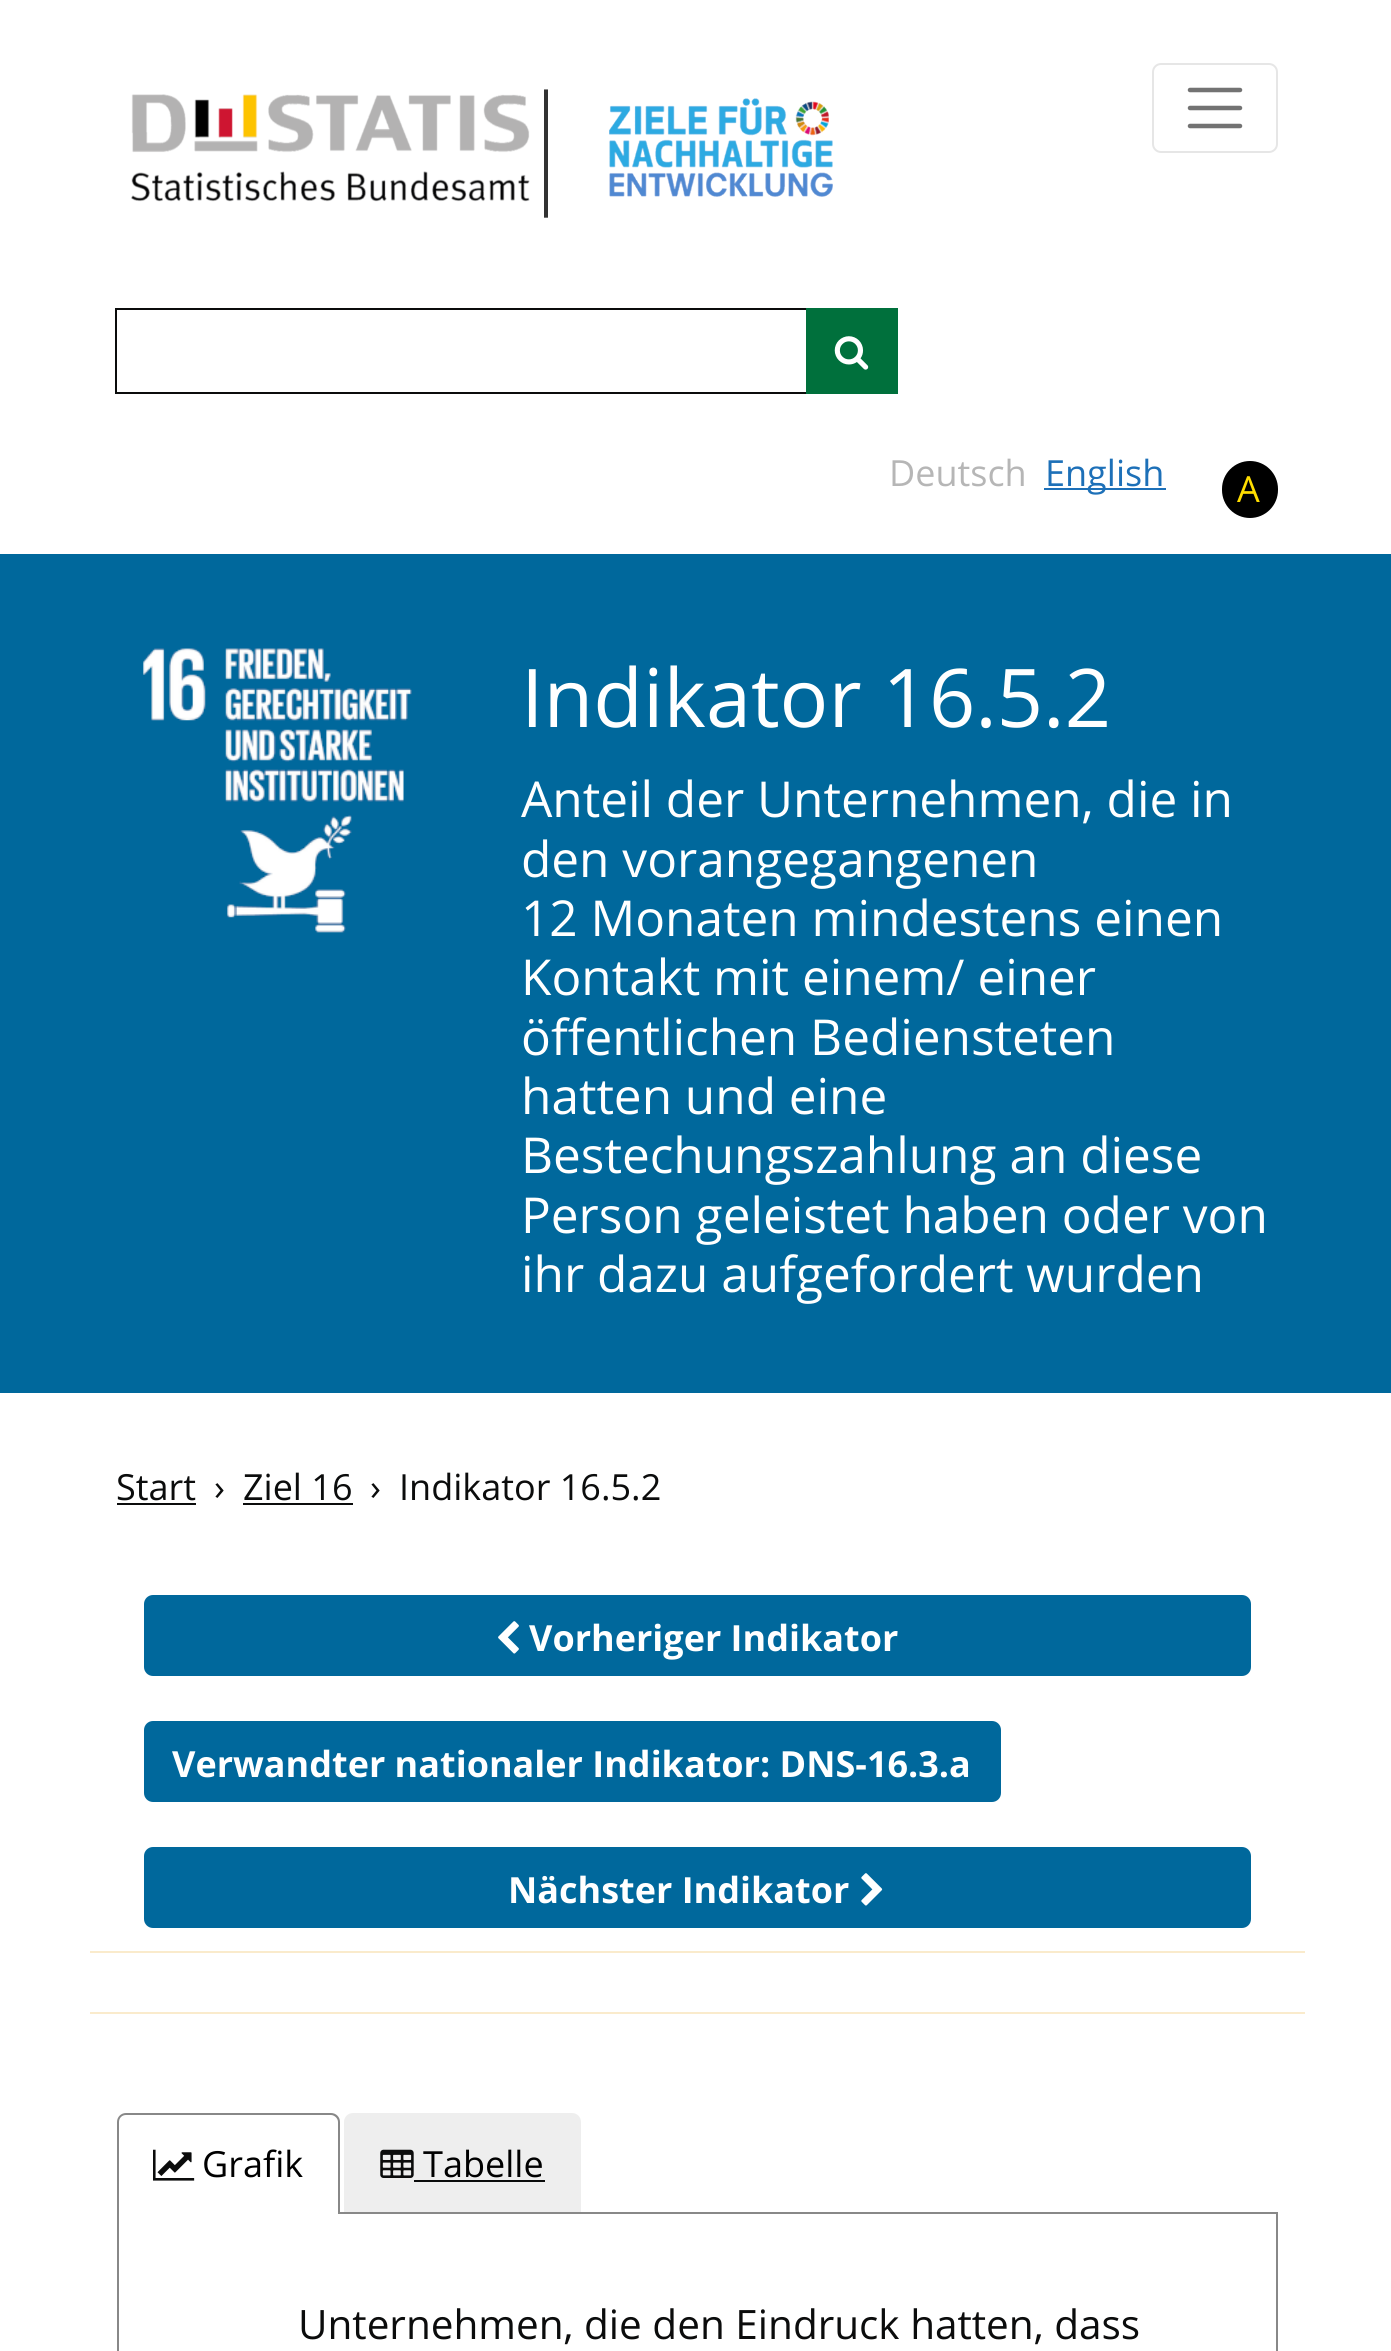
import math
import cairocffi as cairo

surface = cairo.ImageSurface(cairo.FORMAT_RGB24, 1391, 2351)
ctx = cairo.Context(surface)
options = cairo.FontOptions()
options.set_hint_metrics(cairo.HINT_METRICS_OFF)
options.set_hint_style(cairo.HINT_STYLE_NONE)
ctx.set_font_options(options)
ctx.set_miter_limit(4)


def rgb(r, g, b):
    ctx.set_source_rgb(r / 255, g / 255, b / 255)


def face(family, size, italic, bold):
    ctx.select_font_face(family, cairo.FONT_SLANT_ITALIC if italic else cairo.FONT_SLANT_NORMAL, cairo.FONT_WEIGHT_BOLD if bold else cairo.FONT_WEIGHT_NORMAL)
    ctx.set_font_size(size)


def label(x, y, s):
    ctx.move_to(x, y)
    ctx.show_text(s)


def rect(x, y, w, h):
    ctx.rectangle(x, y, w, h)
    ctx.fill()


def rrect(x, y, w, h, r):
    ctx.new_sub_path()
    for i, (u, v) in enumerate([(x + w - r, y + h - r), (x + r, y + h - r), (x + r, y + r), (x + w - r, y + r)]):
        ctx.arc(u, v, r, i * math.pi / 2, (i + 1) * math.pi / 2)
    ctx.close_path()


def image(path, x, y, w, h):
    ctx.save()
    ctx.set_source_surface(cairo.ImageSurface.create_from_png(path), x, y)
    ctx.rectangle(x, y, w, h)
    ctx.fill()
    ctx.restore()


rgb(255, 255, 255)
ctx.paint()
image('image0.png', 131, 89, 702, 129)
rrect(1153, 64, 124, 88, 8)
rgb(230, 230, 230)
ctx.stroke()
ctx.new_path()
ctx.move_to(1190, 90)
ctx.line_to(1240, 90)
ctx.move_to(1190, 108)
ctx.line_to(1240, 108)
ctx.move_to(1190, 126)
ctx.line_to(1240, 126)
rgb(115, 115, 115)
ctx.set_line_width(4.5)
ctx.set_line_cap(cairo.LINE_CAP_ROUND)
ctx.stroke()
ctx.rectangle(116, 309, 691, 84)
rgb(11, 12, 12)
ctx.set_line_width(2)
ctx.set_line_cap(cairo.LINE_CAP_BUTT)
ctx.stroke()
rgb(0, 112, 60)
rect(806, 308, 92, 86)
image('image1.png', 834, 336, 35, 34)
face('Open Sans', 36, 0, 0)
rgb(182, 182, 182)
label(889, 486, 'Deutsch')
rgb(29, 112, 184)
rect(1044, 488, 122, 2)
label(1045, 486, 'English')
rgb(0, 0, 0)
rrect(1222, 461, 56, 57, 28)
ctx.fill()
rgb(255, 221, 0)
label(1237, 502, 'A')
rgb(0, 104, 156)
rect(0, 554, 1391, 839)
image('image2.png', 143, 648, 269, 285)
face('Open Sans', 81, 0, 0)
rgb(255, 255, 255)
label(521, 727, 'Indikator 16.5.2')
face('Open Sans', 49.5, 0, 0)
label(521, 817, 'Anteil der Unternehmen, die in')
label(521, 877, 'den vorangegangenen')
label(521, 936, '12 Monaten mindestens einen')
label(521, 995, 'Kontakt mit einem/ einer')
label(521, 1055, 'öffentlichen Bediensteten')
label(521, 1114, 'hatten und eine')
label(521, 1173, 'Bestechungszahlung an diese')
label(521, 1233, 'Person geleistet haben oder von')
label(521, 1292, 'ihr dazu aufgefordert wurden')
face('Open Sans', 36, 0, 0)
rgb(11, 12, 12)
label(116, 1500, 'Start')
rect(117, 1503, 79, 2)
label(214, 1500, '›')
label(243, 1500, 'Ziel 16')
rect(243, 1503, 110, 2)
label(370, 1500, '›')
label(399, 1500, 'Indikator 16.5.2')
rgb(0, 104, 156)
rrect(144, 1595, 1107, 81, 9)
ctx.fill()
image('image3.png', 498, 1621, 21, 33)
face('Open Sans', 36, 0, 1)
rgb(255, 255, 255)
label(529, 1651, 'Vorheriger Indikator')
rgb(0, 104, 156)
rrect(144, 1721, 857, 81, 9)
ctx.fill()
rgb(255, 255, 255)
label(172, 1777, 'Verwandter nationaler Indikator: DNS-16.3.a')
rgb(0, 104, 156)
rrect(144, 1847, 1107, 81, 9)
ctx.fill()
rgb(255, 255, 255)
label(508, 1903, 'Nächster Indikator')
image('image4.png', 861, 1873, 22, 33)
rgb(250, 235, 204)
rect(90, 1951, 1215, 2)
rect(90, 2012, 1215, 2)
rgb(136, 136, 136)
rect(340, 2212, 938, 2)
ctx.set_fill_rule(cairo.FILL_RULE_EVEN_ODD)
ctx.new_path()
ctx.move_to(126, 2113)
ctx.line_to(331, 2113)
ctx.curve_to(336, 2113, 340, 2117, 340, 2122)
ctx.line_to(340, 2214)
ctx.line_to(117, 2214)
ctx.line_to(117, 2122)
ctx.curve_to(117, 2117, 121, 2113, 126, 2113)
ctx.close_path()
ctx.move_to(126, 2115)
ctx.line_to(331, 2115)
ctx.curve_to(334, 2115, 338, 2118, 338, 2122)
ctx.line_to(338, 2214)
ctx.line_to(119, 2214)
ctx.line_to(119, 2122)
ctx.curve_to(119, 2118, 122, 2115, 126, 2115)
ctx.close_path()
ctx.fill()
image('image5.png', 153, 2149, 42, 32)
face('Open Sans', 36, 0, 0)
rgb(0, 0, 0)
label(202, 2177, 'Grafik')
rgb(238, 238, 238)
ctx.new_path()
ctx.move_to(353, 2114)
ctx.line_to(572, 2114)
ctx.curve_to(576.5, 2114, 580, 2117.5, 580, 2122)
ctx.line_to(580, 2211)
ctx.line_to(345, 2211)
ctx.line_to(345, 2122)
ctx.curve_to(345, 2117.5, 348.5, 2114, 353, 2114)
ctx.close_path()
ctx.fill_preserve()
ctx.stroke()
image('image6.png', 380, 2149, 34, 29)
rgb(0, 0, 0)
label(423, 2177, 'Tabelle')
rgb(11, 12, 12)
rect(414, 2180, 131, 2)
rgb(136, 136, 136)
rect(1276, 2214, 2, 137)
rect(117, 2214, 2, 137)
face('Open Sans', 40.5, 0, 0)
rgb(11, 12, 12)
label(298, 2339, 'Unternehmen, die den Eindruck hatten, dass')
surface.write_to_png('render.png')
